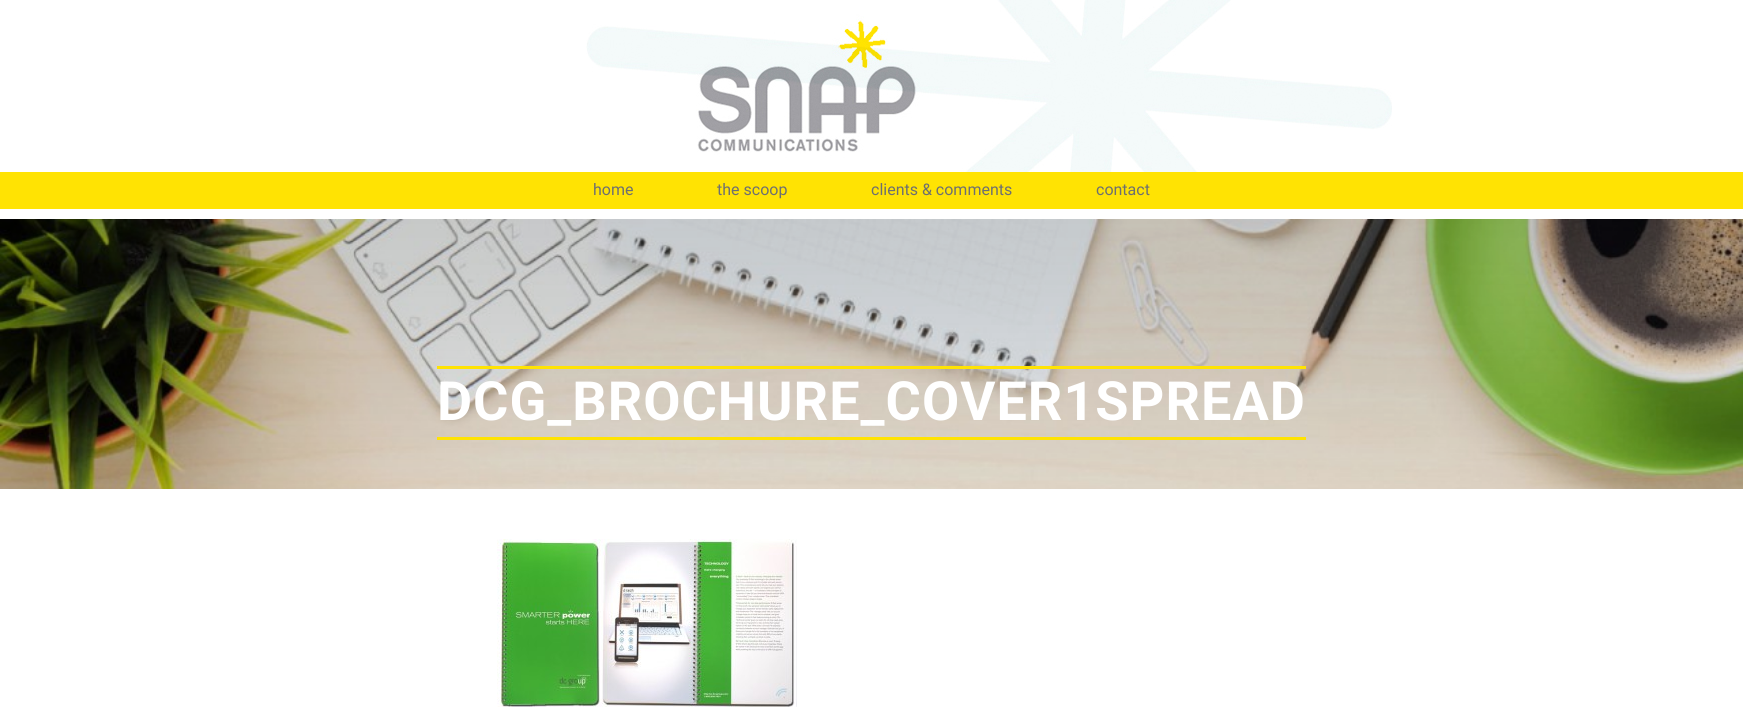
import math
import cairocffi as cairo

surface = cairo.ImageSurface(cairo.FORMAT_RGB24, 1743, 719)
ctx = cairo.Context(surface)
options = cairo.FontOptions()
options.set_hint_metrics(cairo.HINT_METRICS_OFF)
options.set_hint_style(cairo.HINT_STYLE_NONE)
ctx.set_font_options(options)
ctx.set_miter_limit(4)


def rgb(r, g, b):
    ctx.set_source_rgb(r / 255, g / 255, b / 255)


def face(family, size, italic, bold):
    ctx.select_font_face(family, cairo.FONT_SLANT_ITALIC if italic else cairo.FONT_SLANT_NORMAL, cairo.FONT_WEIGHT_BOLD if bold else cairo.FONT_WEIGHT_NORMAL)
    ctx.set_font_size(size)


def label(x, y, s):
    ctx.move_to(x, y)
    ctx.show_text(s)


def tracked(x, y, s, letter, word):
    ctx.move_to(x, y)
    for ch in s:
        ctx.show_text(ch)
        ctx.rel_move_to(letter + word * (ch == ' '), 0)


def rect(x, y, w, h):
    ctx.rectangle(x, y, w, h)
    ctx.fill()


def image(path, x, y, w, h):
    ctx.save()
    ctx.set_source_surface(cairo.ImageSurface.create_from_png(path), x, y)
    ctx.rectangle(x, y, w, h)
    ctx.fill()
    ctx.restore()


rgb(255, 255, 255)
ctx.paint()
image('image0.png', 586, 0, 806, 172)
rgb(255, 227, 3)
rect(0, 172, 1743, 37)
face('Roboto', 16, 0, 0)
rgb(109, 111, 113)
label(593, 195, 'home')
label(717, 195, 'the scoop')
label(871, 195, 'clients & comments')
label(1096, 195, 'contact')
image('image1.png', 0, 219, 1743, 270)
image('image2.png', 0, 219, 1743, 270)
rgb(255, 227, 3)
rect(437, 366, 869, 3)
rect(437, 437, 869, 3)
face('Roboto', 54, 0, 1)
rgb(255, 255, 255)
tracked(437, 420, 'DCG_BROCHURE_COVER1SPREAD', 1, 0)
image('image3.png', 497, 539, 300, 168)
surface.write_to_png('render.png')
